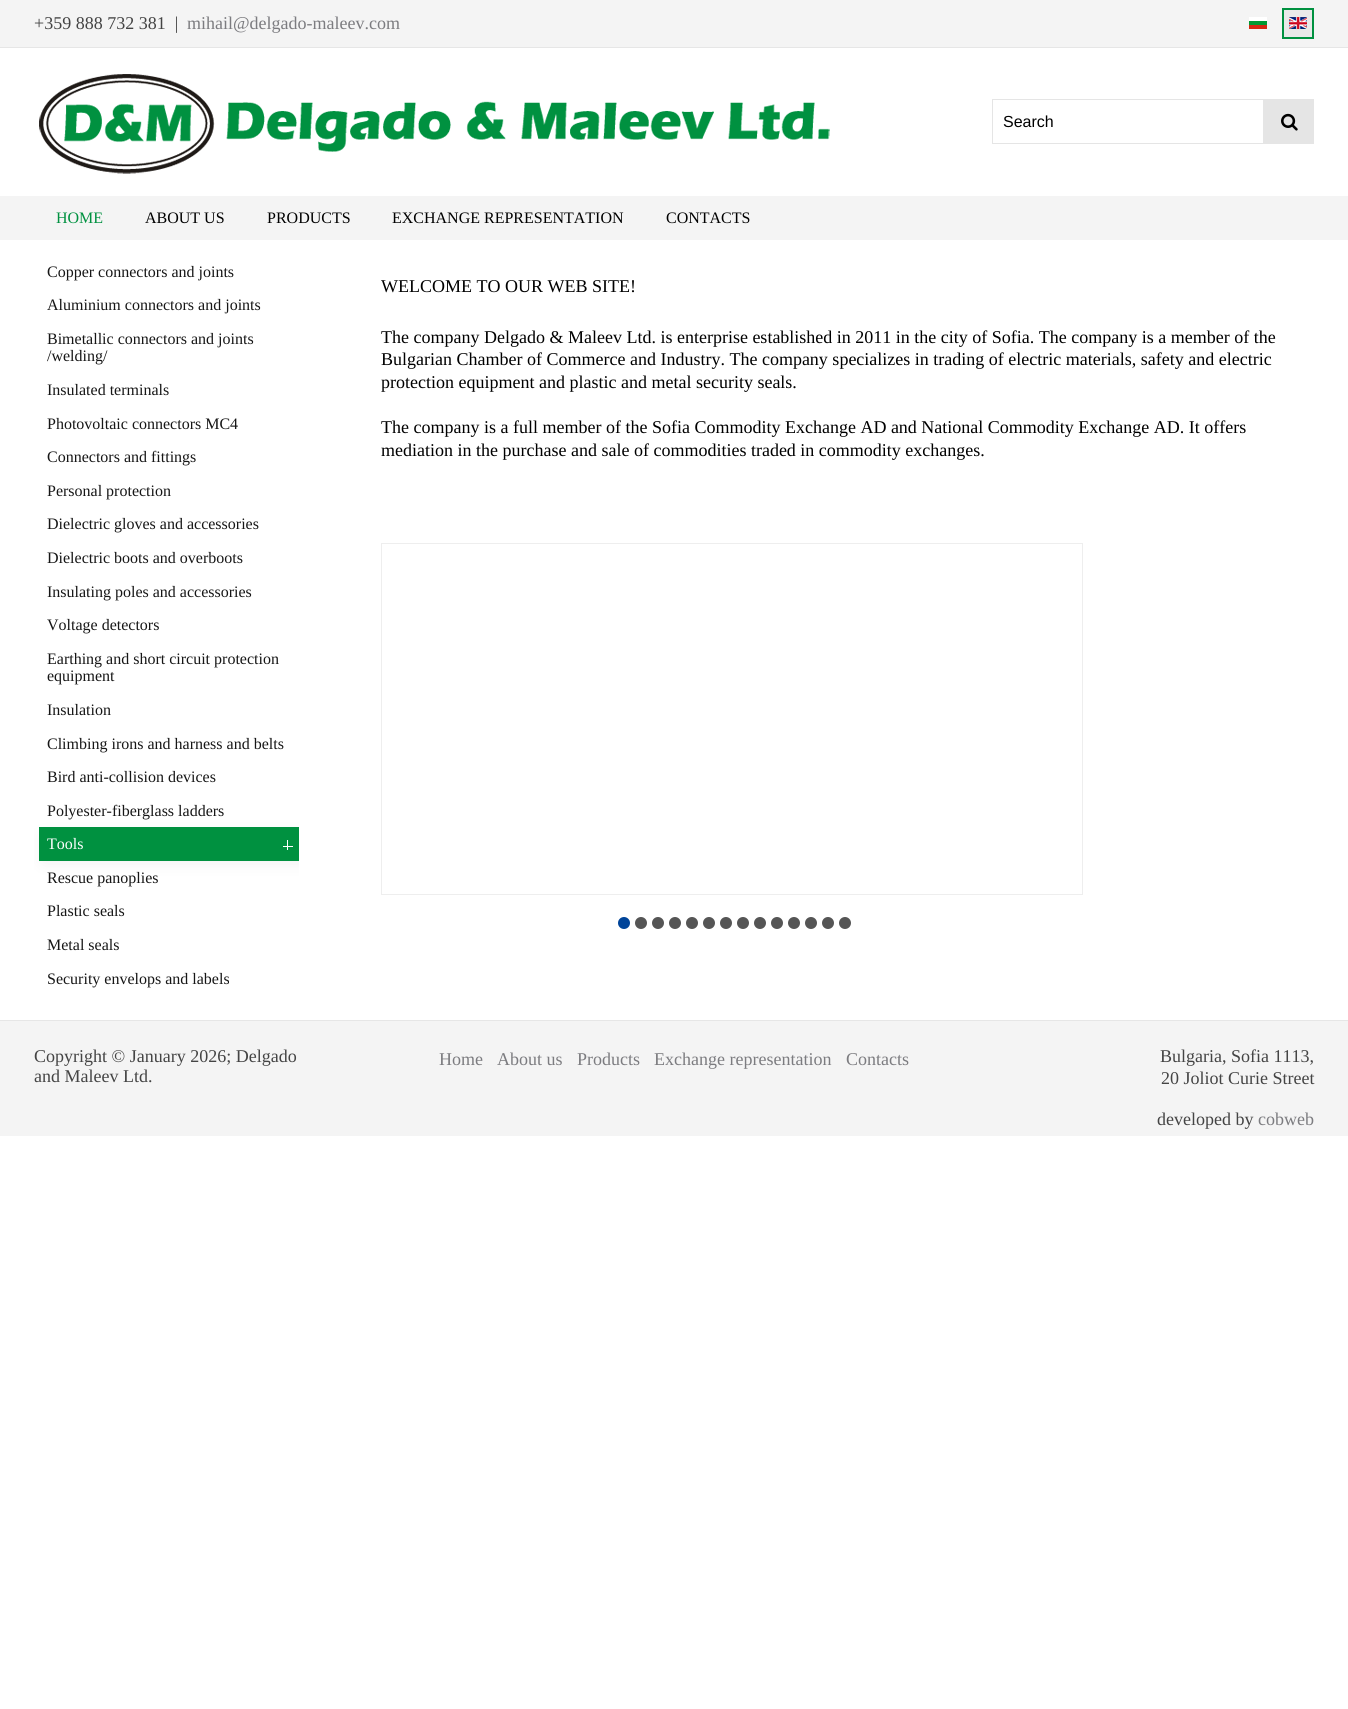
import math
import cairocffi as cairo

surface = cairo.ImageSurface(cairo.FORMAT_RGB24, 1348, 1709)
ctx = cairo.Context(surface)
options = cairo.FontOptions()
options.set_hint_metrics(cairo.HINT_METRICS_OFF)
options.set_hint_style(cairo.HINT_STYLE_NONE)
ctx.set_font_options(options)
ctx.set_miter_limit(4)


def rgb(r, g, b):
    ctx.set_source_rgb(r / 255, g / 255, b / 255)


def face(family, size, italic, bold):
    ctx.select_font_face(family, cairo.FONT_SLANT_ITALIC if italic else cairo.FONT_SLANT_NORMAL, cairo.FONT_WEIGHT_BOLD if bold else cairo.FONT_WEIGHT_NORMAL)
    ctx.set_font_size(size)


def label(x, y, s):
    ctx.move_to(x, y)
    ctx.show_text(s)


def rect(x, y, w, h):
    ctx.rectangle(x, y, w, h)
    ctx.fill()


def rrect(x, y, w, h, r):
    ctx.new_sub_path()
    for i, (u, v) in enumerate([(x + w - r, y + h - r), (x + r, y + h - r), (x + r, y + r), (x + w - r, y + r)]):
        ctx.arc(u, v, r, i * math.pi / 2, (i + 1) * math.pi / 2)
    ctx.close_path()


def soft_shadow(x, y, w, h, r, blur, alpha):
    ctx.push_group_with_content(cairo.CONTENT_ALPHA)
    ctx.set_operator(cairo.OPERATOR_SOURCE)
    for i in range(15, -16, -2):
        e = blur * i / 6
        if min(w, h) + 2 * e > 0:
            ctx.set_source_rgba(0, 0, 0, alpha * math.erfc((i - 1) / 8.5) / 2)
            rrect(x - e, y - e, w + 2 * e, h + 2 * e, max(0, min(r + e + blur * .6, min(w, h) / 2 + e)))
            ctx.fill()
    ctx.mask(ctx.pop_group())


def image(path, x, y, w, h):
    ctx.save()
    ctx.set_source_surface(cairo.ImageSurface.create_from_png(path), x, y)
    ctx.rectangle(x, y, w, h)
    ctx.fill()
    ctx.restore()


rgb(255, 255, 255)
ctx.paint()
rgb(244, 244, 244)
rect(0, 0, 1348, 47)
rgb(230, 230, 230)
rect(0, 47, 1348, 1)
face('Liberation Serif', 18, 0, 0)
rgb(68, 68, 68)
label(34, 29, '+359 888 732 381  |')
rgb(124, 124, 128)
label(187, 29, 'mihail@delgado-maleev.com')
image('image0.png', 1249, 17, 18, 12)
rgb(233, 233, 233)
ctx.rectangle(1283, 9, 30, 29)
ctx.fill_preserve()
rgb(0, 145, 64)
ctx.stroke()
image('image1.png', 1289, 17, 18, 12)
image('image2.png', 39, 74, 791, 100)
ctx.rectangle(992.5, 99.5, 321, 44)
rgb(229, 229, 229)
ctx.set_line_width(1)
ctx.stroke()
face('Liberation Sans', 16, 0, 0)
rgb(0, 0, 0)
label(1003, 127, 'Search')
rgb(229, 229, 229)
rect(1263, 100, 50, 43)
image('image3.png', 1281, 113, 17, 18)
rgb(244, 244, 244)
rect(0, 196, 1348, 44)
face('Liberation Serif', 16, 0, 0)
rgb(0, 145, 64)
label(56, 223, 'HOME')
rgb(0, 0, 0)
label(145, 223, 'ABOUT US')
label(267, 223, 'PRODUCTS')
label(392, 223, 'EXCHANGE REPRESENTATION')
label(666, 223, 'CONTACTS')
rgb(22, 22, 22)
label(47, 277, 'Copper connectors and joints')
label(47, 310, 'Aluminium connectors and joints')
label(47, 344, 'Bimetallic connectors and joints')
label(47, 361, '/welding/')
label(47, 395, 'Insulated terminals')
label(47, 429, 'Photovoltaic connectors MC4')
label(47, 462, 'Connectors and fittings')
label(47, 496, 'Personal protection')
label(47, 529, 'Dielectric gloves and accessories')
label(47, 563, 'Dielectric boots and overboots')
label(47, 597, 'Insulating poles and accessories')
label(47, 630, 'Voltage detectors')
label(47, 664, 'Earthing and short circuit protection')
label(47, 681, 'equipment')
label(47, 715, 'Insulation')
label(47, 749, 'Climbing irons and harness and belts')
label(47, 782, 'Bird anti-collision devices')
label(47, 816, 'Polyester-fiberglass ladders')
ctx.save()
ctx.rectangle(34, 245, 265, 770)
ctx.clip()
rgb(237, 237, 237)
soft_shadow(44, 837, 258, 24, 0, 8, 1)
ctx.restore()
rgb(0, 145, 64)
rect(39, 827, 260, 34)
rgb(255, 255, 255)
label(47, 849, 'Tools')
rect(287, 840, 1, 10)
rect(283, 846, 10, 1)
rgb(22, 22, 22)
label(47, 883, 'Rescue panoplies')
label(47, 916, 'Plastic seals')
label(47, 950, 'Metal seals')
label(47, 984, 'Security envelops and labels')
face('Liberation Serif', 18, 0, 0)
rgb(0, 0, 0)
label(381, 292, 'WELCOME TO OUR WEB SITE!')
label(381, 343, 'The company Delgado & Maleev Ltd. is enterprise established in 2011 in the city of Sofia. The company is a member of the')
label(381, 365, 'Bulgarian Chamber of Commerce and Industry. The company specializes in trading of electric materials, safety and electric')
label(381, 388, 'protection equipment and plastic and metal security seals.')
label(381, 433, 'The company is a full member of the Sofia Commodity Exchange AD and National Commodity Exchange AD. It offers')
label(381, 456, 'mediation in the purchase and sale of commodities traded in commodity exchanges.')
ctx.rectangle(381.5, 543.5, 701, 351)
rgb(238, 238, 238)
ctx.stroke()
rgb(0, 68, 153)
ctx.arc(624, 923, 6, 0, 2 * math.pi)
ctx.fill()
rgb(85, 85, 85)
ctx.arc(641, 923, 6, 0, 2 * math.pi)
ctx.fill()
ctx.arc(658, 923, 6, 0, 2 * math.pi)
ctx.fill()
ctx.arc(675, 923, 6, 0, 2 * math.pi)
ctx.fill()
ctx.arc(692, 923, 6, 0, 2 * math.pi)
ctx.fill()
ctx.arc(709, 923, 6, 0, 2 * math.pi)
ctx.fill()
ctx.arc(726, 923, 6, 0, 2 * math.pi)
ctx.fill()
ctx.arc(743, 923, 6, 0, 2 * math.pi)
ctx.fill()
ctx.arc(760, 923, 6, 0, 2 * math.pi)
ctx.fill()
ctx.arc(777, 923, 6, 0, 2 * math.pi)
ctx.fill()
ctx.arc(794, 923, 6, 0, 2 * math.pi)
ctx.fill()
ctx.arc(811, 923, 6, 0, 2 * math.pi)
ctx.fill()
ctx.arc(828, 923, 6, 0, 2 * math.pi)
ctx.fill()
ctx.arc(845, 923, 6, 0, 2 * math.pi)
ctx.fill()
rgb(244, 244, 244)
rect(0, 1021, 1348, 115)
rgb(230, 230, 230)
rect(0, 1020, 1348, 1)
rgb(68, 68, 68)
label(34, 1062, 'Copyright © January 2026; Delgado')
label(34, 1082, 'and Maleev Ltd.')
rgb(124, 124, 128)
label(439, 1065, 'Home')
label(497, 1065, 'About us')
label(577, 1065, 'Products')
label(654, 1065, 'Exchange representation')
label(846, 1065, 'Contacts')
rgb(68, 68, 68)
label(1160, 1062, 'Bulgaria, Sofia 1113,')
label(1161, 1084, '20 Joliot Curie Street')
label(1157, 1125, 'developed by')
rgb(124, 124, 128)
label(1258, 1125, 'cobweb')
surface.write_to_png('render.png')
